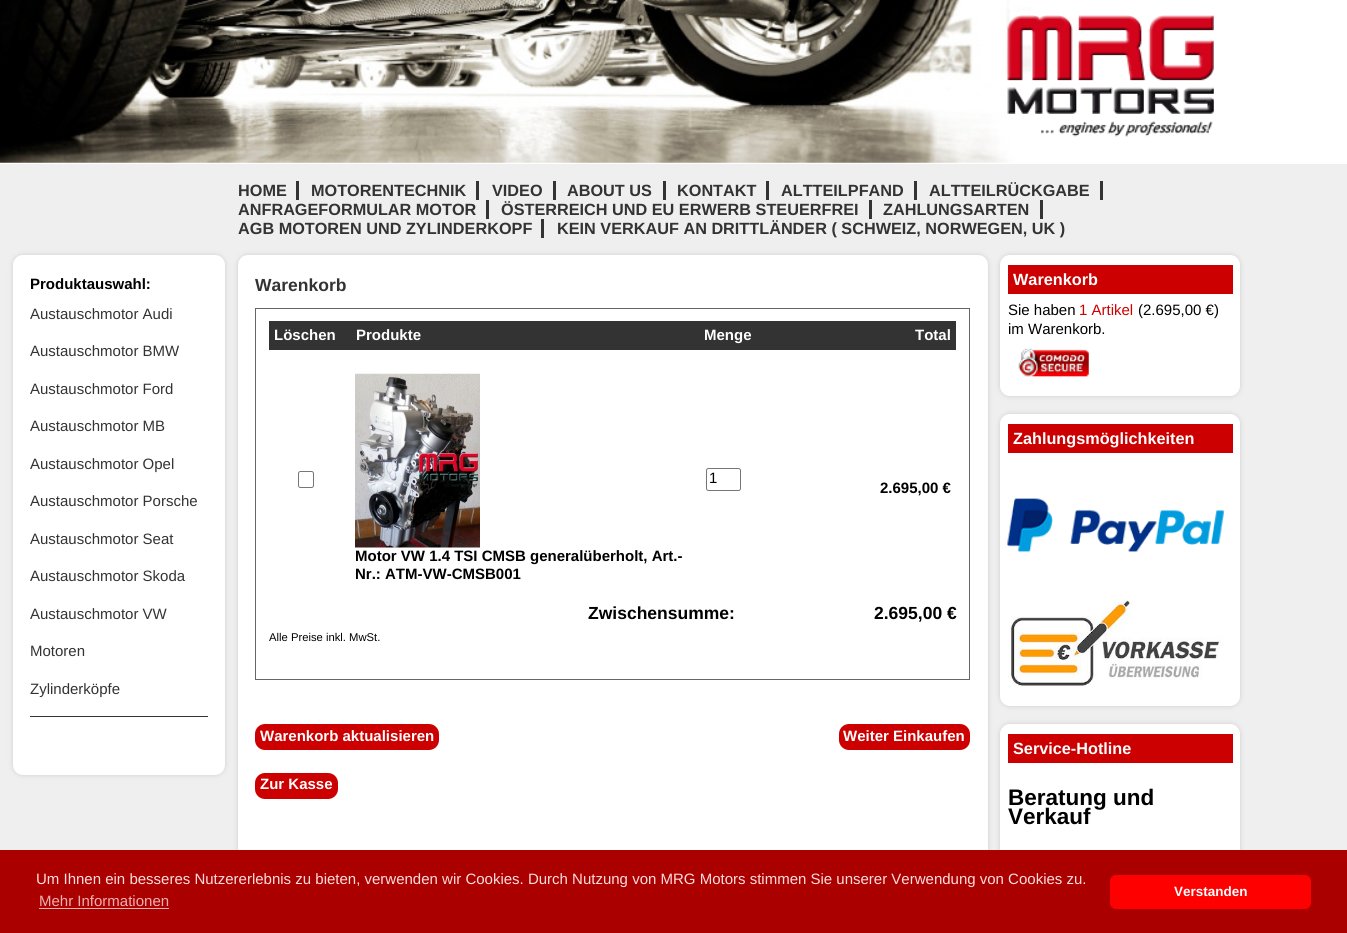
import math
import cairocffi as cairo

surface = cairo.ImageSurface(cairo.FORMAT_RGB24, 1347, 933)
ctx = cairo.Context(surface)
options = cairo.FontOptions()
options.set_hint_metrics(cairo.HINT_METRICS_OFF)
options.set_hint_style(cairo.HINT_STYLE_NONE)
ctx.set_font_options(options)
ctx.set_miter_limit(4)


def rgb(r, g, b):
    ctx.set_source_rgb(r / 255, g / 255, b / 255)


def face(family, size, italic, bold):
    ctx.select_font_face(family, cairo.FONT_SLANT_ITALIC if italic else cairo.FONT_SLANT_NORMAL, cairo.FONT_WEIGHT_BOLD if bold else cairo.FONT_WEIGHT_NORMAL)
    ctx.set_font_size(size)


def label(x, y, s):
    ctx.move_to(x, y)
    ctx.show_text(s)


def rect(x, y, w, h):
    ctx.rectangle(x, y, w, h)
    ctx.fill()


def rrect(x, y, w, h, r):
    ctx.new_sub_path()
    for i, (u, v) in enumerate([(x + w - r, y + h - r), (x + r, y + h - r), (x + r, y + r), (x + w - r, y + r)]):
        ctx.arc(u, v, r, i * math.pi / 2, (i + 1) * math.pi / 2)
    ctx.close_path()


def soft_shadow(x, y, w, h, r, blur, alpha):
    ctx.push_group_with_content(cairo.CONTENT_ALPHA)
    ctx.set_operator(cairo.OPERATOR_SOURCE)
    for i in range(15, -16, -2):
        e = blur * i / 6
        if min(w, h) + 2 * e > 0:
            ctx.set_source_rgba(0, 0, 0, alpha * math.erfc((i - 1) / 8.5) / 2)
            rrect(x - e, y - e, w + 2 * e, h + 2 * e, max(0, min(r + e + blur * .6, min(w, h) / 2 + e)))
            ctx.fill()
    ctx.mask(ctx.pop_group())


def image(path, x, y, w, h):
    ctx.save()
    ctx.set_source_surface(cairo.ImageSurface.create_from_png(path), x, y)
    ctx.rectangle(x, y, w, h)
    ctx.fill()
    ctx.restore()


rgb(239, 239, 239)
ctx.paint()
rgb(255, 255, 255)
rect(0, 0, 1347, 164)
image('image0.png', 0, 0, 1032, 163)
image('image1.png', 0, 59, 1032, 104)
image('image2.png', 1007, 15, 207, 122)
rgb(51, 51, 51)
rect(296, 181, 3, 19)
face('Liberation Sans', 16.25, 0, 1)
label(238, 196, 'HOME')
rect(476, 181, 3, 19)
label(311, 196, 'MOTORENTECHNIK')
rect(553, 181, 3, 19)
label(492, 196, 'VIDEO')
rect(663, 181, 3, 19)
label(567, 196, 'ABOUT US')
rect(766, 181, 3, 19)
label(677, 196, 'KONTAKT')
rect(914, 181, 3, 19)
label(781, 196, 'ALTTEILPFAND')
rect(1100, 181, 3, 19)
label(929, 196, 'ALTTEILRÜCKGABE')
rect(486, 200, 3, 19)
label(238, 215, 'ANFRAGEFORMULAR MOTOR')
rect(869, 200, 3, 19)
label(501, 215, 'ÖSTERREICH UND EU ERWERB STEUERFREI')
rect(1040, 200, 3, 19)
label(883, 215, 'ZAHLUNGSARTEN')
rect(541, 219, 3, 19)
label(238, 234, 'AGB MOTOREN UND ZYLINDERKOPF')
label(557, 234, 'KEIN VERKAUF AN DRITTLÄNDER ( SCHWEIZ, NORWEGEN, UK )')
rgb(204, 204, 204)
soft_shadow(13, 255, 212, 520, 10, 2.5, 1)
rgb(255, 255, 255)
rrect(13, 255, 212, 520, 10)
ctx.fill()
face('Liberation Sans', 15, 0, 1)
rgb(0, 0, 0)
label(30, 289, 'Produktauswahl:')
face('Liberation Sans', 15, 0, 0)
rgb(51, 51, 51)
label(30, 319, 'Austauschmotor Audi')
label(30, 356, 'Austauschmotor BMW')
label(30, 394, 'Austauschmotor Ford')
label(30, 431, 'Austauschmotor MB')
label(30, 469, 'Austauschmotor Opel')
label(30, 506, 'Austauschmotor Porsche')
label(30, 544, 'Austauschmotor Seat')
label(30, 581, 'Austauschmotor Skoda')
label(30, 619, 'Austauschmotor VW')
label(30, 656, 'Motoren')
label(30, 694, 'Zylinderköpfe')
rect(30, 716, 178, 1)
rgb(204, 204, 204)
soft_shadow(238, 255, 750, 610, 10, 2.5, 1)
rgb(255, 255, 255)
rrect(238, 255, 750, 610, 10)
ctx.fill()
face('Liberation Sans', 17.5, 0, 1)
rgb(51, 51, 51)
label(255, 291, 'Warenkorb')
ctx.rectangle(255.5, 308.5, 714, 371)
rgb(102, 102, 102)
ctx.set_line_width(1)
ctx.stroke()
rgb(51, 51, 51)
rect(269, 321, 687, 29)
face('Liberation Sans', 15, 0, 1)
rgb(255, 255, 255)
label(274, 340, 'Löschen')
label(356, 340, 'Produkte')
label(704, 340, 'Menge')
label(915, 340, 'Total')
rrect(298.5, 471.5, 15, 16, 2)
rgb(118, 118, 118)
ctx.stroke()
rrect(706.5, 468.5, 34, 22, 2)
ctx.stroke()
face('Liberation Sans', 15, 0, 0)
rgb(0, 0, 0)
label(709, 483, '1')
face('Liberation Sans', 15, 0, 1)
label(880, 493, '2.695,00 €')
image('image3.png', 355, 373, 125, 175)
label(355, 561, 'Motor VW 1.4 TSI CMSB generalüberholt, Art.-')
label(355, 579, 'Nr.: ATM-VW-CMSB001')
face('Liberation Sans', 17.5, 0, 1)
label(588, 619, 'Zwischensumme:')
label(874, 619, '2.695,00 €')
face('Liberation Sans', 11.25, 0, 0)
label(269, 641, 'Alle Preise inkl. MwSt.')
rgb(204, 0, 0)
rrect(255, 724, 184, 26, 10)
ctx.fill()
face('Liberation Sans', 15, 0, 1)
rgb(255, 255, 255)
label(260, 741, 'Warenkorb aktualisieren')
rgb(204, 0, 0)
rrect(255, 773, 83, 26, 10)
ctx.fill()
rgb(255, 255, 255)
label(260, 789, 'Zur Kasse')
rgb(204, 0, 0)
rrect(839, 724, 131, 26, 10)
ctx.fill()
rgb(255, 255, 255)
label(843, 741, 'Weiter Einkaufen')
rgb(204, 204, 204)
soft_shadow(1000, 255, 240, 141, 10, 2.5, 1)
rgb(255, 255, 255)
rrect(1000, 255, 240, 141, 10)
ctx.fill()
rgb(204, 0, 0)
rect(1008, 265, 225, 29)
face('Liberation Sans', 16.25, 0, 1)
rgb(255, 255, 255)
label(1013, 285, 'Warenkorb')
face('Liberation Sans', 15, 0, 0)
rgb(0, 0, 0)
label(1008, 315, 'Sie haben')
rgb(204, 0, 0)
label(1079, 315, '1 Artikel')
rgb(0, 0, 0)
label(1138, 315, '(2.695,00 €)')
label(1008, 334, 'im Warenkorb.')
image('image4.png', 1018, 348, 71, 29)
rgb(204, 204, 204)
soft_shadow(1000, 414, 240, 292, 10, 2.5, 1)
rgb(255, 255, 255)
rrect(1000, 414, 240, 292, 10)
ctx.fill()
rgb(204, 0, 0)
rect(1008, 424, 225, 29)
face('Liberation Sans', 16.25, 0, 1)
rgb(255, 255, 255)
label(1013, 444, 'Zahlungsmöglichkeiten')
image('image5.png', 1007, 498, 217, 54)
image('image6.png', 1008, 600, 215, 87)
rgb(204, 204, 204)
soft_shadow(1000, 724, 240, 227, 10, 2.5, 1)
rgb(255, 255, 255)
rrect(1000, 724, 240, 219, 10)
ctx.fill()
rgb(204, 0, 0)
rect(1008, 734, 225, 29)
rgb(255, 255, 255)
label(1013, 754, 'Service-Hotline')
face('Liberation Sans', 22.5, 0, 1)
rgb(0, 0, 0)
label(1008, 805, 'Beratung und')
label(1008, 824, 'Verkauf')
rgb(170, 0, 0)
rect(0, 850, 1347, 83)
face('Liberation Sans', 15, 0, 0)
rgb(255, 221, 221)
label(36, 884, 'Um Ihnen ein besseres Nutzererlebnis zu bieten, verwenden wir Cookies. Durch Nutzung von MRG Motors stimmen Sie unserer Verwendung von Cookies zu.')
rgb(238, 177, 177)
label(39, 906, 'Mehr Informationen')
rect(39, 908, 130, 1)
rgb(255, 0, 0)
rrect(1110, 875, 201, 34, 6)
ctx.fill()
face('Liberation Sans', 13.5, 0, 1)
rgb(255, 255, 255)
label(1174, 896, 'Verstanden')
surface.write_to_png('render.png')
